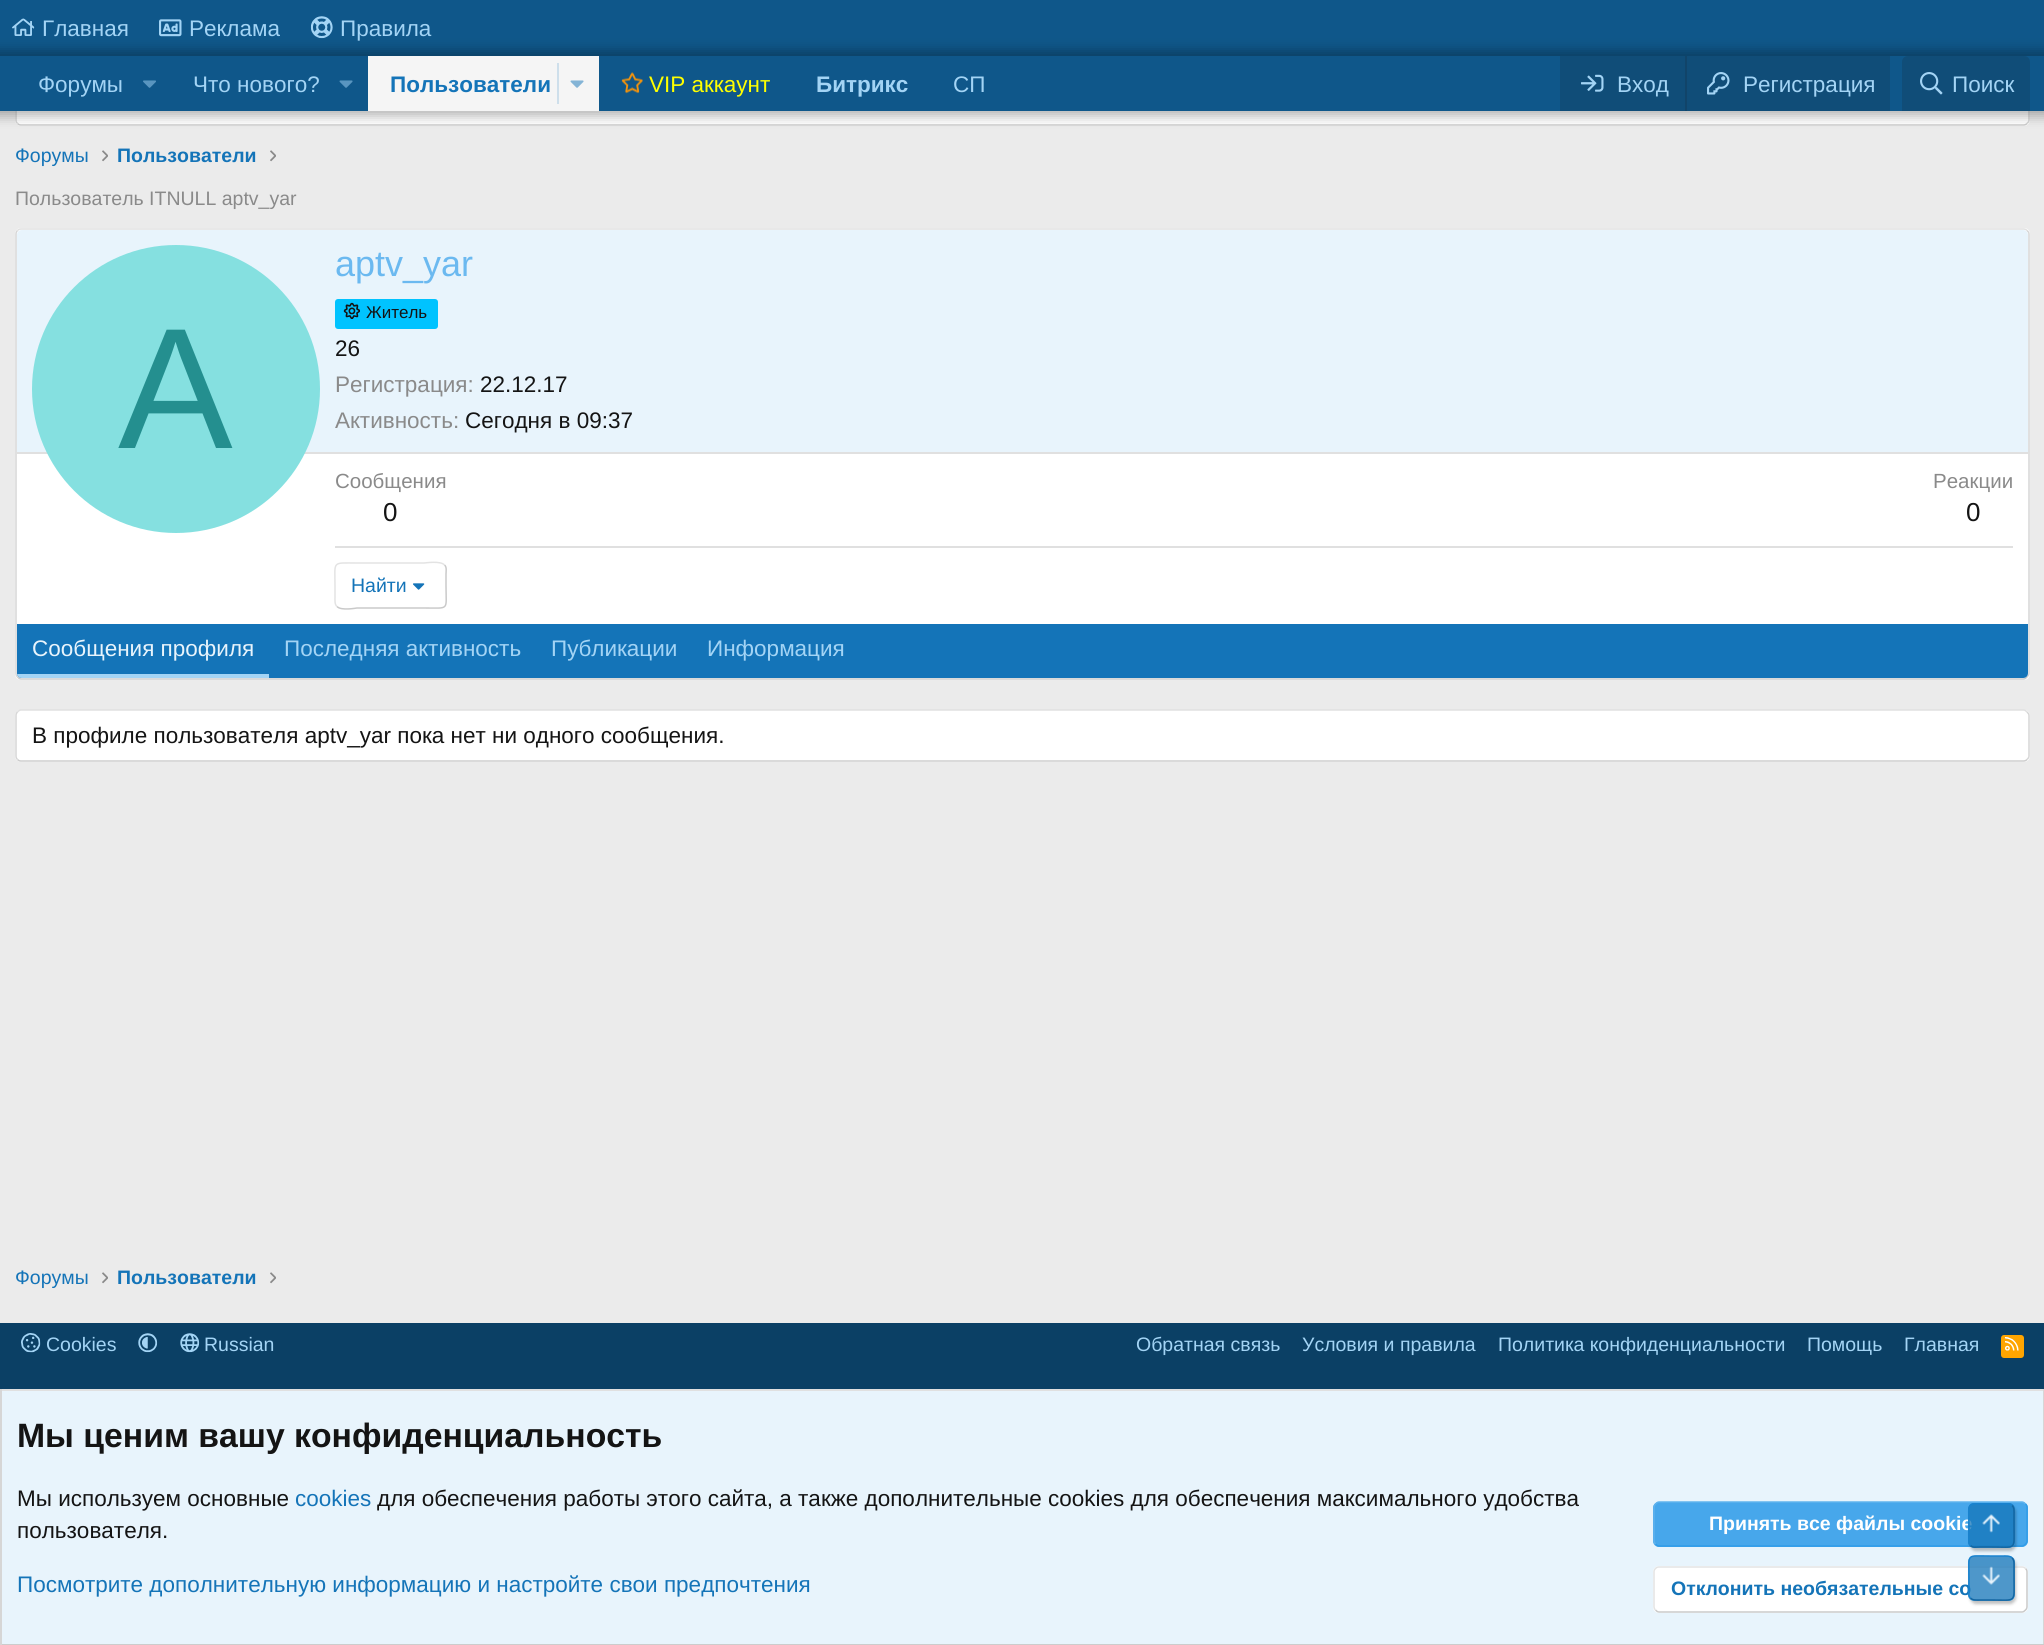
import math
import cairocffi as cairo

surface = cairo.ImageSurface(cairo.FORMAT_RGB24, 2044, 1645)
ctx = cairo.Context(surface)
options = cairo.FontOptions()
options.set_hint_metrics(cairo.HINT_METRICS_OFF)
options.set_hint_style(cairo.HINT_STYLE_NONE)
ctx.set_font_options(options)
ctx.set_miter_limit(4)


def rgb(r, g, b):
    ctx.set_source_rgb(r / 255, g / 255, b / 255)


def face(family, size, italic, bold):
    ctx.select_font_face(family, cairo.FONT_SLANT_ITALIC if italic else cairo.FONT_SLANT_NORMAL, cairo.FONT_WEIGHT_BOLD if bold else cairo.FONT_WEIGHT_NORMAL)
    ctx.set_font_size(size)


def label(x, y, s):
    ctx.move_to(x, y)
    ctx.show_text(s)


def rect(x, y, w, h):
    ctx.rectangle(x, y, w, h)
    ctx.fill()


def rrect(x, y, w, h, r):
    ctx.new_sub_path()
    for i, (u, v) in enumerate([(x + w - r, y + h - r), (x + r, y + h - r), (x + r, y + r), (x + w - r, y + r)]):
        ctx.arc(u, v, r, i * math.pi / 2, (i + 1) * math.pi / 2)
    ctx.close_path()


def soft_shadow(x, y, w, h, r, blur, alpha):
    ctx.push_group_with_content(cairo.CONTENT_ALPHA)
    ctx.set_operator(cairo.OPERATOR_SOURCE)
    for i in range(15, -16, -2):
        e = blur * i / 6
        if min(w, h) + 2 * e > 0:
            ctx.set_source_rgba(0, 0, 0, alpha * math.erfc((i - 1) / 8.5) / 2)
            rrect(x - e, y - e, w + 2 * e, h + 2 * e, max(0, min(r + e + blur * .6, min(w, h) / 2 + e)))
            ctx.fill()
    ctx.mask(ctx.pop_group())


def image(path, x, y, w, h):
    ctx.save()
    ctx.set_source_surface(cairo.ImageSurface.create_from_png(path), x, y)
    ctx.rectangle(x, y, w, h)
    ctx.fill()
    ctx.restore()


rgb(235, 235, 235)
ctx.paint()
rgb(15, 87, 138)
rect(0, 0, 2044, 56)
image('image0.png', 12, 18, 23, 18)
face('Liberation Sans', 22.5, 0, 0)
rgb(163, 212, 245)
label(42, 36, 'Главная')
image('image1.png', 159, 19, 23, 18)
label(189, 36, 'Реклама')
image('image2.png', 310, 16, 23, 23)
label(340, 36, 'Правила')
rgb(255, 255, 255)
rrect(15, 62, 2015, 64, 6)
ctx.fill()
ctx.new_path()
ctx.move_to(2027, 64)
ctx.curve_to(2028, 65, 2029, 66, 2029, 67.5)
ctx.line_to(2029, 120)
ctx.curve_to(2029, 121.5, 2028, 122.5, 2027, 123.5)
rgb(214, 214, 214)
ctx.set_line_width(1.5)
ctx.stroke()
ctx.new_path()
ctx.move_to(2027, 123.5)
ctx.curve_to(2026, 124.5, 2025, 125, 2023.5, 125)
ctx.line_to(21, 125)
ctx.curve_to(19.5, 125, 18.5, 124.5, 17.5, 123.5)
rgb(204, 204, 204)
ctx.stroke()
ctx.new_path()
ctx.move_to(17.5, 123.5)
ctx.curve_to(16.5, 122.5, 16, 121.5, 16, 120)
ctx.line_to(16, 67.5)
ctx.curve_to(16, 66, 16.5, 65, 17.5, 64)
rgb(214, 214, 214)
ctx.stroke()
rgb(0, 0, 0)
soft_shadow(-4, 51, 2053, 65, 0, 6, 0.3)
rgb(15, 87, 138)
rect(0, 56, 2044, 55)
rgb(163, 212, 245)
label(38, 92, 'Форумы')
image('image3.png', 143, 80, 13, 8)
label(193, 92, 'Что нового?')
image('image4.png', 339, 80, 14, 8)
rgb(245, 245, 245)
rect(368, 56, 231, 55)
face('Liberation Sans', 22.5, 0, 1)
rgb(20, 116, 184)
label(390, 92, 'Пользователи')
rgb(206, 223, 235)
rect(557, 63, 2, 41)
image('image5.png', 570, 80, 14, 8)
image('image6.png', 621, 72, 22, 22)
face('Liberation Sans', 22.5, 0, 0)
rgb(255, 255, 0)
label(649, 92, 'VIP аккаунт')
face('Liberation Sans', 22.5, 0, 1)
rgb(163, 212, 245)
label(816, 92, 'Битрикс')
face('Liberation Sans', 22.5, 0, 0)
label(953, 92, 'СП')
rgb(16, 77, 120)
rect(1560, 56, 330, 55)
image('image7.png', 1581, 74, 23, 18)
rgb(163, 212, 245)
label(1617, 92, 'Вход')
rgb(17, 68, 105)
rect(1685, 56, 2, 55)
image('image8.png', 1707, 72, 23, 23)
rgb(163, 212, 245)
label(1743, 92, 'Регистрация')
rgb(16, 77, 120)
ctx.new_path()
ctx.move_to(1908, 56)
ctx.line_to(2024, 56)
ctx.curve_to(2027.5, 56, 2030, 58.5, 2030, 62)
ctx.line_to(2030, 111)
ctx.line_to(1902, 111)
ctx.line_to(1902, 62)
ctx.curve_to(1902, 58.5, 1904.5, 56, 1908, 56)
ctx.close_path()
ctx.fill()
image('image9.png', 1920, 72, 23, 23)
rgb(163, 212, 245)
label(1952, 92, 'Поиск')
face('Liberation Sans', 19.5, 0, 0)
rgb(20, 116, 184)
label(15, 162, 'Форумы')
image('image10.png', 102, 150, 6, 12)
face('Liberation Sans', 19.5, 0, 1)
label(117, 162, 'Пользователи')
image('image10.png', 270, 150, 6, 12)
face('Liberation Sans', 19.5, 0, 0)
rgb(138, 138, 138)
label(15, 205, 'Пользователь ITNULL aptv_yar')
rgb(255, 255, 255)
rrect(15, 228, 2015, 452, 6)
ctx.fill()
ctx.new_path()
ctx.move_to(17.5, 230.5)
ctx.curve_to(18.5, 229.5, 19.5, 229, 21, 229)
ctx.line_to(2023.5, 229)
ctx.curve_to(2025, 229, 2026, 229.5, 2027, 230.5)
rgb(224, 224, 224)
ctx.stroke()
ctx.new_path()
ctx.move_to(2027, 230.5)
ctx.curve_to(2028, 231.5, 2029, 232.5, 2029, 234)
ctx.line_to(2029, 673.5)
ctx.curve_to(2029, 675, 2028, 676, 2027, 677)
rgb(214, 214, 214)
ctx.stroke()
ctx.new_path()
ctx.move_to(2027, 677)
ctx.curve_to(2026, 678, 2025, 679, 2023.5, 679)
ctx.line_to(21, 679)
ctx.curve_to(19.5, 679, 18.5, 678, 17.5, 677)
rgb(204, 204, 204)
ctx.stroke()
ctx.new_path()
ctx.move_to(17.5, 677)
ctx.curve_to(16.5, 676, 16, 675, 16, 673.5)
ctx.line_to(16, 234)
ctx.curve_to(16, 232.5, 16.5, 231.5, 17.5, 230.5)
rgb(214, 214, 214)
ctx.stroke()
rgb(232, 244, 252)
ctx.new_path()
ctx.move_to(22, 230)
ctx.line_to(2023, 230)
ctx.curve_to(2026, 230, 2028, 232, 2028, 235)
ctx.line_to(2028, 453)
ctx.line_to(17, 453)
ctx.line_to(17, 235)
ctx.curve_to(17, 232, 19, 230, 22, 230)
ctx.close_path()
ctx.fill()
rgb(224, 224, 224)
rect(17, 452, 2011, 2)
rgb(133, 224, 224)
ctx.arc(176, 389, 144, 0, 2 * math.pi)
ctx.fill()
face('Liberation Sans', 172, 0, 0)
rgb(36, 143, 143)
label(118, 448, 'A')
face('Liberation Sans', 36, 0, 0)
rgb(107, 185, 240)
label(335, 276, 'aptv_yar')
rgb(0, 195, 255)
rrect(335, 299, 103, 30, 3)
ctx.fill()
image('image11.png', 343, 302, 17, 17)
face('Liberation Sans', 17, 0, 0)
rgb(20, 20, 20)
label(366, 318, 'Житель')
face('Liberation Sans', 22.5, 0, 0)
label(335, 356, '26')
rgb(138, 138, 138)
label(335, 392, 'Регистрация:')
rgb(20, 20, 20)
label(480, 392, '22.12.17')
rgb(138, 138, 138)
label(335, 428, 'Активность:')
rgb(20, 20, 20)
label(465, 428, 'Сегодня в 09:37')
face('Liberation Sans', 20.5, 0, 0)
rgb(138, 138, 138)
label(335, 488, 'Сообщения')
face('Liberation Sans', 26, 0, 0)
rgb(20, 20, 20)
label(383, 521, '0')
face('Liberation Sans', 20.5, 0, 0)
rgb(138, 138, 138)
label(1933, 488, 'Реакции')
face('Liberation Sans', 26, 0, 0)
rgb(20, 20, 20)
label(1966, 521, '0')
rgb(224, 224, 224)
rect(335, 546, 1678, 2)
ctx.new_path()
ctx.move_to(444.5, 565)
ctx.curve_to(447, 567, 446, 571.5, 446, 574)
ctx.line_to(446, 586)
ctx.curve_to(446, 611, 450, 608, 424, 608)
ctx.line_to(357, 608)
ctx.curve_to(356.5, 608, 341, 611, 337, 606.5)
rgb(201, 201, 201)
ctx.stroke()
ctx.new_path()
ctx.move_to(337, 606.5)
ctx.curve_to(334.5, 604.5, 335, 600, 335, 597)
ctx.line_to(335, 586)
ctx.curve_to(335, 560.5, 331.5, 563, 357, 563)
ctx.line_to(424, 563)
ctx.curve_to(425, 563, 440.5, 560.5, 444.5, 565)
rgb(227, 227, 227)
ctx.stroke()
face('Liberation Sans', 19.5, 0, 0)
rgb(20, 116, 184)
label(351, 592, 'Найти')
image('image12.png', 413, 583, 12, 7)
ctx.new_path()
ctx.move_to(17, 624)
ctx.line_to(2028, 624)
ctx.line_to(2028, 673)
ctx.curve_to(2028, 676, 2026, 678, 2023, 678)
ctx.line_to(22, 678)
ctx.curve_to(19, 678, 17, 676, 17, 673)
ctx.close_path()
ctx.fill()
ctx.save()
ctx.new_path()
ctx.move_to(17, 624)
ctx.line_to(2028, 624)
ctx.line_to(2028, 673)
ctx.curve_to(2028, 676, 2026, 678, 2023, 678)
ctx.line_to(22, 678)
ctx.curve_to(19, 678, 17, 676, 17, 673)
ctx.close_path()
ctx.clip()
rgb(163, 212, 245)
rect(17, 674, 252, 4)
ctx.restore()
face('Liberation Sans', 22.5, 0, 0)
rgb(232, 244, 252)
label(32, 656, 'Сообщения профиля')
rgb(163, 212, 245)
label(284, 656, 'Последняя активность')
label(551, 656, 'Публикации')
label(707, 656, 'Информация')
rgb(255, 255, 255)
rrect(15, 710, 2015, 52, 6)
ctx.fill()
ctx.new_path()
ctx.move_to(17.5, 712)
ctx.curve_to(18.5, 711, 19.5, 710, 21, 710)
ctx.line_to(2023.5, 710)
ctx.curve_to(2025, 710, 2026, 711, 2027, 712)
rgb(224, 224, 224)
ctx.stroke()
ctx.new_path()
ctx.move_to(2027, 712)
ctx.curve_to(2028, 713, 2029, 714, 2029, 715.5)
ctx.line_to(2029, 756)
ctx.curve_to(2029, 757.5, 2028, 758.5, 2027, 759.5)
rgb(214, 214, 214)
ctx.stroke()
ctx.new_path()
ctx.move_to(2027, 759.5)
ctx.curve_to(2026, 760.5, 2025, 761, 2023.5, 761)
ctx.line_to(21, 761)
ctx.curve_to(19.5, 761, 18.5, 760.5, 17.5, 759.5)
rgb(204, 204, 204)
ctx.stroke()
ctx.new_path()
ctx.move_to(17.5, 759.5)
ctx.curve_to(16.5, 758.5, 16, 757.5, 16, 756)
ctx.line_to(16, 715.5)
ctx.curve_to(16, 714, 16.5, 713, 17.5, 712)
rgb(214, 214, 214)
ctx.stroke()
rgb(20, 20, 20)
label(32, 743, 'В профиле пользователя aptv_yar пока нет ни одного сообщения.')
face('Liberation Sans', 19.5, 0, 0)
rgb(20, 116, 184)
label(15, 1284, 'Форумы')
image('image10.png', 102, 1272, 6, 12)
face('Liberation Sans', 19.5, 0, 1)
label(117, 1284, 'Пользователи')
image('image10.png', 270, 1272, 6, 12)
rgb(11, 64, 101)
rect(0, 1323, 2044, 66)
image('image13.png', 21, 1333, 20, 20)
face('Liberation Sans', 19.5, 0, 0)
rgb(163, 212, 245)
label(46, 1351, 'Cookies')
image('image14.png', 138, 1333, 20, 20)
image('image15.png', 180, 1333, 20, 20)
label(204, 1351, 'Russian')
label(1136, 1351, 'Обратная связь')
label(1302, 1351, 'Условия и правила')
label(1498, 1351, 'Политика конфиденциальности')
label(1807, 1351, 'Помощь')
label(1904, 1351, 'Главная')
rgb(255, 165, 0)
rrect(2001, 1335, 23, 23, 3)
ctx.fill()
image('image16.png', 2005, 1337, 14, 14)
rgb(232, 244, 252)
rect(2, 1391, 2041, 253)
rgb(224, 224, 224)
rect(0, 1389, 2044, 2)
rgb(214, 214, 214)
rect(2043, 1389, 1, 256)
rgb(204, 204, 204)
rect(0, 1644, 2044, 1)
rgb(214, 214, 214)
rect(0, 1389, 2, 256)
face('Liberation Sans', 33.75, 0, 1)
rgb(20, 20, 20)
label(17, 1447, 'Мы ценим вашу конфиденциальность')
face('Liberation Sans', 22.5, 0, 0)
label(17, 1506, 'Мы используем основные')
rgb(20, 116, 184)
label(295, 1506, 'cookies')
rgb(20, 20, 20)
label(377, 1506, 'для обеспечения работы этого сайта, а также дополнительные cookies для обеспечения максимального удобства')
label(17, 1538, 'пользователя.')
rgb(20, 116, 184)
label(17, 1592, 'Посмотрите дополнительную информацию и настройте свои предпочтения')
rgb(71, 167, 235)
rrect(1653, 1502, 375, 45, 6)
ctx.fill()
ctx.new_path()
ctx.move_to(2025.5, 1504)
ctx.curve_to(2026.5, 1505, 2027, 1506, 2027, 1507.5)
ctx.line_to(2027, 1540.5)
ctx.curve_to(2027, 1542, 2026.5, 1543, 2025.5, 1544)
ctx.curve_to(2024.5, 1545, 2023.5, 1546, 2022, 1546)
ctx.line_to(1659, 1546)
ctx.curve_to(1657.5, 1546, 1656.5, 1545, 1655.5, 1544)
rgb(48, 156, 232)
ctx.stroke()
ctx.new_path()
ctx.move_to(1655.5, 1544)
ctx.curve_to(1654.5, 1543, 1654, 1542, 1654, 1540.5)
ctx.line_to(1654, 1507.5)
ctx.curve_to(1654, 1506, 1654.5, 1505, 1655.5, 1504)
ctx.curve_to(1656.5, 1503, 1657.5, 1502, 1659, 1502)
ctx.line_to(2022, 1502)
ctx.curve_to(2023.5, 1502, 2024.5, 1503, 2025.5, 1504)
rgb(94, 178, 237)
ctx.stroke()
face('Liberation Sans', 19.5, 0, 1)
rgb(255, 255, 255)
label(1709, 1530, 'Принять все файлы cookie')
rrect(1653, 1566, 375, 47, 6)
ctx.fill()
ctx.new_path()
ctx.move_to(2025.5, 1568.5)
ctx.curve_to(2026.5, 1569.5, 2027, 1570.5, 2027, 1572)
ctx.line_to(2027, 1606.5)
ctx.curve_to(2027, 1608, 2026.5, 1609, 2025.5, 1610)
ctx.curve_to(2024.5, 1611, 2023.5, 1612, 2022, 1612)
ctx.line_to(1659, 1612)
ctx.curve_to(1657.5, 1612, 1656.5, 1611, 1655.5, 1610)
rgb(201, 201, 201)
ctx.stroke()
ctx.new_path()
ctx.move_to(1655.5, 1610)
ctx.curve_to(1654.5, 1609, 1654, 1608, 1654, 1606.5)
ctx.line_to(1654, 1572)
ctx.curve_to(1654, 1570.5, 1654.5, 1569.5, 1655.5, 1568.5)
ctx.curve_to(1656.5, 1567.5, 1657.5, 1567, 1659, 1567)
ctx.line_to(2022, 1567)
ctx.curve_to(2023.5, 1567, 2024.5, 1567.5, 2025.5, 1568.5)
rgb(227, 227, 227)
ctx.stroke()
rgb(20, 116, 184)
label(1671, 1595, 'Отклонить необязательные co')
ctx.save()
ctx.set_fill_rule(cairo.FILL_RULE_EVEN_ODD)
ctx.new_path()
ctx.move_to(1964, 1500)
ctx.line_to(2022, 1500)
ctx.line_to(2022, 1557)
ctx.line_to(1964, 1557)
ctx.close_path()
ctx.move_to(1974, 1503)
ctx.line_to(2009, 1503)
ctx.curve_to(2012.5, 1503, 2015, 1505.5, 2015, 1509)
ctx.line_to(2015, 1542)
ctx.curve_to(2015, 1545.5, 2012.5, 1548, 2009, 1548)
ctx.line_to(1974, 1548)
ctx.curve_to(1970.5, 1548, 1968, 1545.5, 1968, 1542)
ctx.line_to(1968, 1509)
ctx.curve_to(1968, 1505.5, 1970.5, 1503, 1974, 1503)
ctx.close_path()
ctx.clip()
rgb(0, 0, 0)
soft_shadow(1970, 1506, 46, 45, 6, 1.5, 0.25)
ctx.restore()
ctx.set_source_rgba(0.078, 0.455, 0.722, 0.75)
rrect(1968, 1503, 47, 45, 6)
ctx.fill()
ctx.new_path()
ctx.move_to(2012, 1505.5)
ctx.curve_to(2014.5, 1507.5, 2014, 1511.5, 2014, 1514.5)
ctx.line_to(2014, 1525.5)
ctx.curve_to(2014, 1551, 2017, 1547, 1991, 1547)
ctx.line_to(1980, 1547)
ctx.curve_to(1977, 1547, 1972.5, 1548, 1970.5, 1545.5)
rgb(18, 101, 161)
ctx.stroke()
ctx.new_path()
ctx.move_to(1970.5, 1545.5)
ctx.curve_to(1968, 1543.5, 1969, 1539.5, 1969, 1536.5)
ctx.line_to(1969, 1525.5)
ctx.curve_to(1969, 1500, 1965.5, 1504, 1991, 1504)
ctx.line_to(2003, 1504)
ctx.curve_to(2005.5, 1504, 2010, 1503, 2012, 1505.5)
rgb(23, 130, 207)
ctx.stroke()
image('image17.png', 1982, 1514, 18, 19)
ctx.save()
ctx.set_fill_rule(cairo.FILL_RULE_EVEN_ODD)
ctx.new_path()
ctx.move_to(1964, 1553)
ctx.line_to(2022, 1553)
ctx.line_to(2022, 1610)
ctx.line_to(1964, 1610)
ctx.close_path()
ctx.move_to(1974, 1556)
ctx.line_to(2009, 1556)
ctx.curve_to(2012.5, 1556, 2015, 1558.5, 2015, 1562)
ctx.line_to(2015, 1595)
ctx.curve_to(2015, 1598.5, 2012.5, 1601, 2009, 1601)
ctx.line_to(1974, 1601)
ctx.curve_to(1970.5, 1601, 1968, 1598.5, 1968, 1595)
ctx.line_to(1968, 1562)
ctx.curve_to(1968, 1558.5, 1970.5, 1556, 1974, 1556)
ctx.close_path()
ctx.clip()
rgb(0, 0, 0)
soft_shadow(1970, 1559, 46, 45, 6, 1.5, 0.25)
ctx.restore()
ctx.set_source_rgba(0.078, 0.455, 0.722, 0.75)
rrect(1968, 1556, 47, 45, 6)
ctx.fill()
ctx.new_path()
ctx.move_to(2012, 1558)
ctx.curve_to(2014.5, 1560, 2014, 1564, 2014, 1567)
ctx.line_to(2014, 1578)
ctx.curve_to(2014, 1603.5, 2017, 1600, 1991, 1600)
ctx.line_to(1980, 1600)
ctx.curve_to(1977, 1600, 1972.5, 1600.5, 1970.5, 1598)
rgb(18, 101, 161)
ctx.stroke()
ctx.new_path()
ctx.move_to(1970.5, 1598)
ctx.curve_to(1968, 1596, 1969, 1592, 1969, 1589)
ctx.line_to(1969, 1578)
ctx.curve_to(1969, 1552.5, 1965.5, 1556, 1991, 1556)
ctx.line_to(2003, 1556)
ctx.curve_to(2005.5, 1556, 2010, 1555.5, 2012, 1558)
rgb(23, 130, 207)
ctx.stroke()
image('image18.png', 1982, 1566, 18, 19)
surface.write_to_png('render.png')
